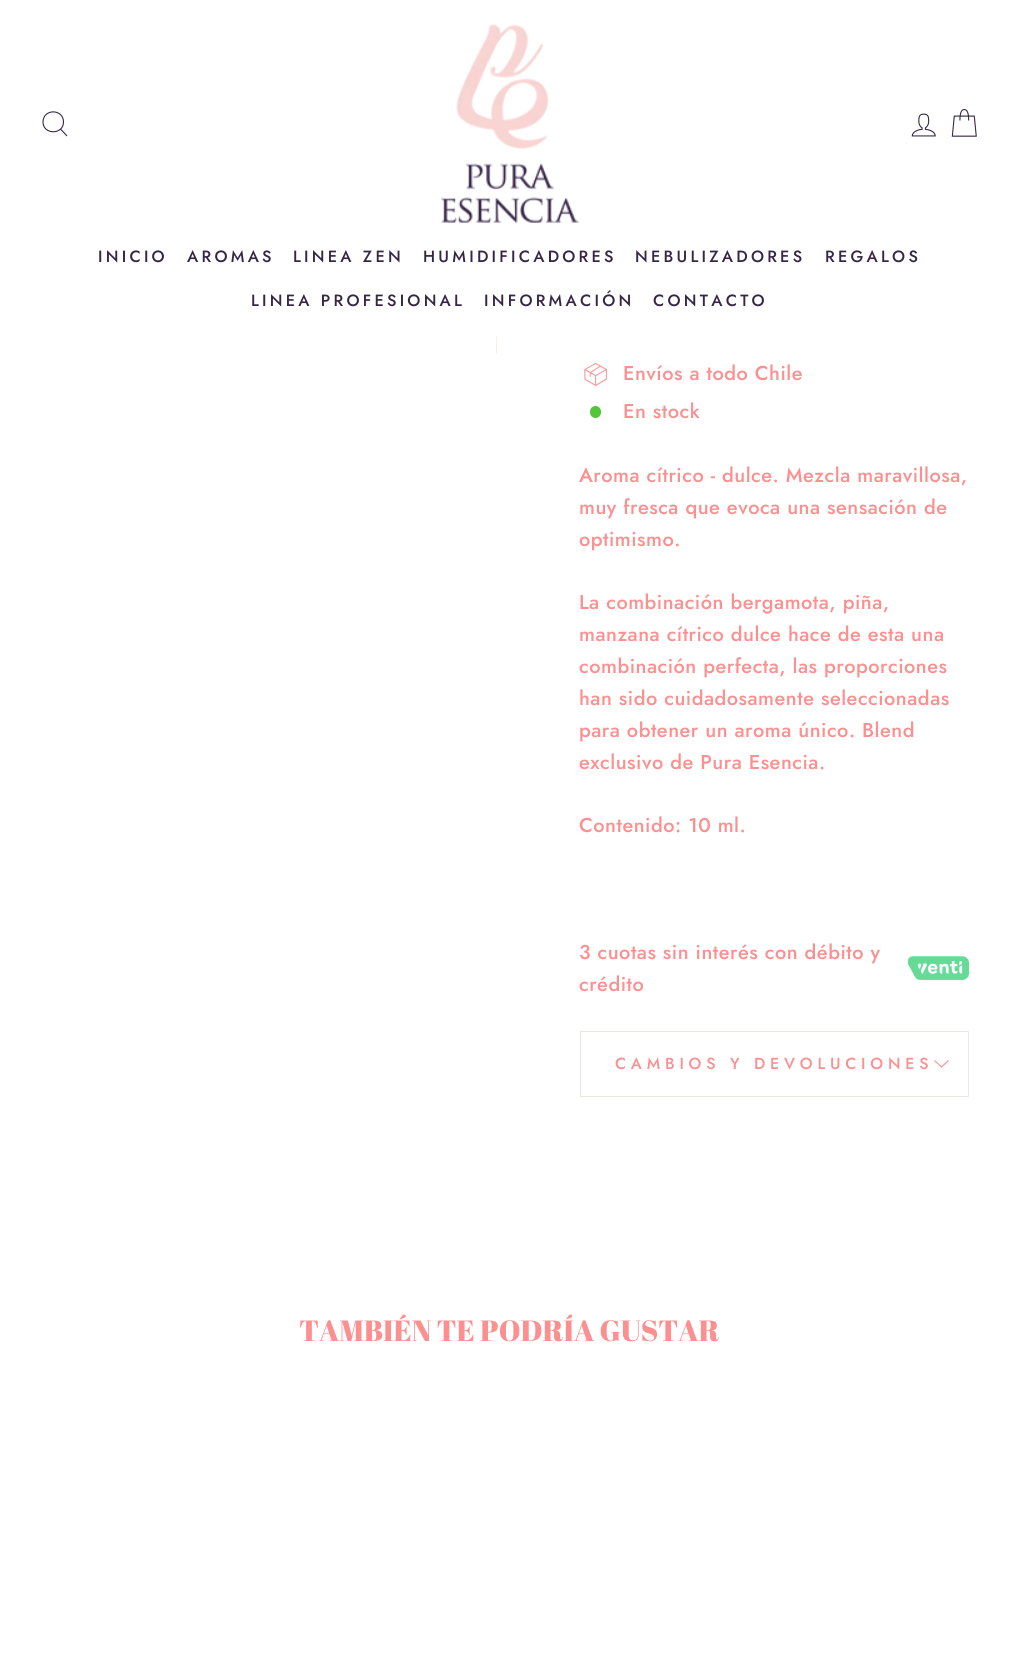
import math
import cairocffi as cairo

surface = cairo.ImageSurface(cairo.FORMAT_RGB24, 1018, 1659)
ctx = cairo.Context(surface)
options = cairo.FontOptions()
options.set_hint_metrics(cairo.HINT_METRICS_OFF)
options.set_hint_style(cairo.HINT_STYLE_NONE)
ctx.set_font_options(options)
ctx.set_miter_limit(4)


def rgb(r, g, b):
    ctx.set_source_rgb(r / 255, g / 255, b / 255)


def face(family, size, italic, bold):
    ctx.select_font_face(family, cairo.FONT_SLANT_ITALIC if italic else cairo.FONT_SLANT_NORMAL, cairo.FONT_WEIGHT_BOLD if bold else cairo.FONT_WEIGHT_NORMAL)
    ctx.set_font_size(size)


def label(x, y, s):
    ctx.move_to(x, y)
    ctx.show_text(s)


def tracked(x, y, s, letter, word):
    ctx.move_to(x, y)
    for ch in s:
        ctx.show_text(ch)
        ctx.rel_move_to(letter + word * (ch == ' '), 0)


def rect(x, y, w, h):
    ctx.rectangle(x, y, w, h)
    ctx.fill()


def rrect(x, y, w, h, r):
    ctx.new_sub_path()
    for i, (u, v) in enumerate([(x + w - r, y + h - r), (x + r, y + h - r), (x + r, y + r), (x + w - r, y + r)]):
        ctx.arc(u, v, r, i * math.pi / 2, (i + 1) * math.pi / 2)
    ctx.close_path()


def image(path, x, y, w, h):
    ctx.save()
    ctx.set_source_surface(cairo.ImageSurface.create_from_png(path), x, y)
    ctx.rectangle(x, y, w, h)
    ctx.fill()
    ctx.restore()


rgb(255, 255, 255)
ctx.paint()
ctx.new_path()
ctx.move_to(63.5, 122)
ctx.curve_to(63.5, 135, 43, 135, 43, 122)
ctx.curve_to(43, 108.5, 63.5, 108.5, 63.5, 122)
ctx.close_path()
ctx.move_to(67, 136)
ctx.line_to(60.5, 129)
rgb(54, 38, 70)
ctx.set_line_width(1.1)
ctx.stroke()
image('image0.png', 441, 24, 138, 199)
image('image1.png', 911, 113, 25, 24)
image('image2.png', 951, 109, 26, 28)
face('Jost Medium', 16.25, 0, 0)
tracked(98, 262, 'INICIO', 3.25, 0)
tracked(187, 262, 'AROMAS', 3.25, 0)
tracked(293, 262, 'LINEA ZEN', 3.25, 0)
tracked(423, 262, 'HUMIDIFICADORES', 3.25, 0)
tracked(635, 262, 'NEBULIZADORES', 3.25, 0)
tracked(825, 262, 'REGALOS', 3.25, 0)
tracked(251, 306, 'LINEA PROFESIONAL', 3.25, 0)
tracked(484, 306, 'INFORMACIÓN', 3.25, 0)
tracked(653, 306, 'CONTACTO', 3.25, 0)
image('image3.png', 496, 336, 1, 17)
image('image4.png', 584, 362, 23, 24)
face('Jost Medium', 20, 0, 0)
rgb(252, 143, 143)
tracked(623, 380, 'Envíos a todo Chile', 0.5, 0)
rgb(84, 198, 58)
rrect(590, 406, 11, 12, 5.5)
ctx.fill()
rgb(252, 143, 143)
tracked(623, 418, 'En stock', 0.5, 0)
tracked(579, 482, 'Aroma cítrico - dulce. Mezcla maravillosa,', 0.5, 0)
tracked(579, 514, 'muy fresca que evoca una sensación de', 0.5, 0)
tracked(579, 546, 'optimismo.', 0.5, 0)
tracked(579, 609, 'La combinación bergamota, piña,', 0.5, 0)
tracked(579, 641, 'manzana cítrico dulce hace de esta una', 0.5, 0)
tracked(579, 673, 'combinación perfecta, las proporciones', 0.5, 0)
tracked(579, 705, 'han sido cuidadosamente seleccionadas', 0.5, 0)
tracked(579, 737, 'para obtener un aroma único. Blend', 0.5, 0)
tracked(579, 769, 'exclusivo de Pura Esencia.', 0.5, 0)
tracked(579, 832, 'Contenido: 10 ml.', 0.5, 0)
tracked(579, 959, '3 cuotas sin interés con débito y', 0.5, 0)
tracked(579, 991, 'crédito', 0.5, 0)
image('image5.png', 908, 956, 61, 24)
rgb(232, 232, 225)
rect(580, 1096, 389, 1)
rect(580, 1031, 389, 1)
rect(968, 1031, 1, 65)
rect(580, 1031, 1, 65)
face('Jost Medium', 16, 0, 0)
rgb(252, 143, 143)
tracked(615, 1069, 'CAMBIOS Y DEVOLUCIONES', 4.8, 0)
ctx.new_path()
ctx.move_to(934.5, 1060.5)
ctx.line_to(941.5, 1067)
ctx.line_to(948.5, 1060.5)
ctx.stroke()
face('Abril Fatface', 29.25, 0, 0)
label(299, 1341, 'TAMBIÉN TE PODRÍA GUSTAR')
surface.write_to_png('render.png')
